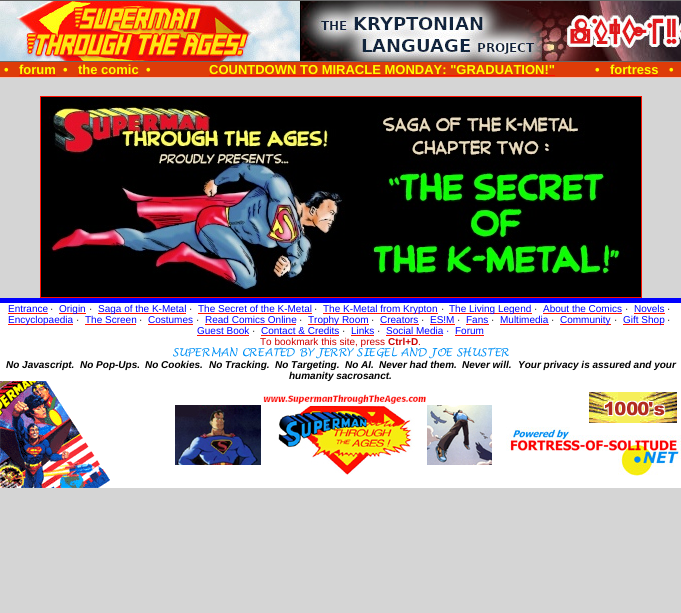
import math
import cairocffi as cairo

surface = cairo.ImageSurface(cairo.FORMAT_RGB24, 681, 613)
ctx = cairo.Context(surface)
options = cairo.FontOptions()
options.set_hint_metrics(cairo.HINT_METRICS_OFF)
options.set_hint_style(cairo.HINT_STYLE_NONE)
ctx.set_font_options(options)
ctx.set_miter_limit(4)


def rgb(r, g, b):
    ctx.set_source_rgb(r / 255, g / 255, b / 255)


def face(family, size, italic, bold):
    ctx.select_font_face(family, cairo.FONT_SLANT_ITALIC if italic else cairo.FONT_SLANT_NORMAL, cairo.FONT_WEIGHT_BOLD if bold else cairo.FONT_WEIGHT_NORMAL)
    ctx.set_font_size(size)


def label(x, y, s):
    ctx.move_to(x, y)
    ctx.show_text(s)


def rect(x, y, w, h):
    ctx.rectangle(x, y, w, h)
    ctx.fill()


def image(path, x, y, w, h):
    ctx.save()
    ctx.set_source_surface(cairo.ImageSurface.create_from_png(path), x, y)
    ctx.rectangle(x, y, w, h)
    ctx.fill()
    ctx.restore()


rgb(213, 213, 213)
ctx.paint()
rgb(102, 102, 102)
rect(0, 0, 681, 1)
image('image0.png', 0, 1, 300, 60)
rgb(0, 0, 0)
rect(300, 1, 1, 60)
image('image1.png', 301, 1, 380, 60)
rgb(102, 102, 102)
rect(0, 61, 681, 1)
rgb(222, 60, 8)
rect(0, 62, 681, 15)
face('Liberation Sans', 13, 0, 1)
rgb(255, 255, 0)
label(4, 74, '•')
label(19, 74, 'forum')
rgb(255, 15, 0)
rect(19, 75, 37, 1)
rgb(255, 255, 0)
label(63, 74, '•')
label(78, 74, 'the comic')
rgb(255, 15, 0)
rect(78, 75, 61, 1)
rgb(255, 255, 0)
label(146, 74, '•')
label(209, 74, 'COUNTDOWN TO MIRACLE MONDAY: "GRADUATION!"')
rgb(255, 15, 0)
rect(209, 75, 346, 1)
rgb(255, 255, 0)
label(595, 74, '•')
label(610, 74, 'fortress')
rgb(255, 15, 0)
rect(610, 75, 48, 1)
rgb(255, 255, 0)
label(669, 74, '•')
rgb(248, 191, 175)
rect(0, 77, 681, 1)
ctx.rectangle(40.5, 96.5, 601, 201)
rgb(255, 15, 0)
ctx.set_line_width(1)
ctx.stroke()
image('image2.png', 41, 97, 600, 200)
rgb(0, 0, 255)
rect(0, 298, 681, 5)
rgb(255, 255, 255)
rect(0, 303, 681, 78)
face('Liberation Sans', 10, 0, 0)
rgb(0, 0, 255)
label(8, 312, 'Entrance')
rgb(255, 15, 0)
rect(8, 313, 40, 1)
rgb(0, 0, 0)
label(50, 312, '·')
rgb(255, 15, 0)
rect(59, 313, 27, 1)
rgb(0, 0, 255)
label(59, 312, 'Origin')
rgb(0, 0, 0)
label(89, 312, '·')
rgb(255, 15, 0)
rect(98, 313, 88, 1)
rgb(0, 0, 255)
label(98, 312, 'Saga of the K-Metal')
rgb(0, 0, 0)
label(189, 312, '·')
rgb(0, 0, 255)
label(198, 312, 'The Secret of the K-Metal')
rgb(255, 15, 0)
rect(198, 313, 114, 1)
rgb(0, 0, 0)
label(314, 312, '·')
rgb(255, 15, 0)
rect(323, 313, 115, 1)
rgb(0, 0, 255)
label(323, 312, 'The K-Metal from Krypton')
rgb(0, 0, 0)
label(441, 312, '·')
rgb(255, 15, 0)
rect(449, 313, 83, 1)
rgb(0, 0, 255)
label(449, 312, 'The Living Legend')
rgb(0, 0, 0)
label(534, 312, '·')
rgb(0, 0, 255)
label(543, 312, 'About the Comics')
rgb(255, 15, 0)
rect(543, 313, 79, 1)
rgb(0, 0, 0)
label(625, 312, '·')
rgb(0, 0, 255)
label(634, 312, 'Novels')
rgb(255, 15, 0)
rect(634, 313, 31, 1)
rgb(0, 0, 0)
label(667, 312, '·')
rgb(255, 15, 0)
rect(8, 324, 65, 1)
rgb(0, 0, 255)
label(8, 323, 'Encyclopaedia')
rgb(0, 0, 0)
label(76, 323, '·')
rgb(0, 0, 255)
label(85, 323, 'The Screen')
rgb(255, 15, 0)
rect(85, 324, 51, 1)
rgb(0, 0, 0)
label(139, 323, '·')
rgb(0, 0, 255)
label(148, 323, 'Costumes')
rgb(255, 15, 0)
rect(148, 324, 45, 1)
rgb(0, 0, 0)
label(196, 323, '·')
rgb(0, 0, 255)
label(205, 323, 'Read Comics Online')
rgb(255, 15, 0)
rect(205, 324, 91, 1)
rgb(0, 0, 0)
label(299, 323, '·')
rgb(255, 15, 0)
rect(308, 324, 61, 1)
rgb(0, 0, 255)
label(308, 323, 'Trophy Room')
rgb(0, 0, 0)
label(371, 323, '·')
rgb(0, 0, 255)
label(380, 323, 'Creators')
rgb(255, 15, 0)
rect(380, 324, 39, 1)
rgb(0, 0, 0)
label(421, 323, '·')
rgb(0, 0, 255)
label(430, 323, 'ES!M')
rgb(255, 15, 0)
rect(430, 324, 25, 1)
rgb(0, 0, 0)
label(457, 323, '·')
rgb(0, 0, 255)
label(466, 323, 'Fans')
rgb(255, 15, 0)
rect(466, 324, 23, 1)
rgb(0, 0, 0)
label(491, 323, '·')
rgb(0, 0, 255)
label(500, 323, 'Multimedia')
rgb(255, 15, 0)
rect(500, 324, 49, 1)
rgb(0, 0, 0)
label(551, 323, '·')
rgb(255, 15, 0)
rect(560, 324, 51, 1)
rgb(0, 0, 255)
label(560, 323, 'Community')
rgb(0, 0, 0)
label(614, 323, '·')
rgb(255, 15, 0)
rect(623, 324, 41, 1)
rgb(0, 0, 255)
label(623, 323, 'Gift Shop')
rgb(0, 0, 0)
label(667, 323, '·')
rgb(0, 0, 255)
label(197, 334, 'Guest Book')
rgb(255, 15, 0)
rect(197, 335, 52, 1)
rgb(0, 0, 0)
label(252, 334, '·')
rgb(0, 0, 255)
label(261, 334, 'Contact & Credits')
rgb(255, 15, 0)
rect(261, 335, 78, 1)
rgb(0, 0, 0)
label(342, 334, '·')
rgb(0, 0, 255)
label(351, 334, 'Links')
rgb(255, 15, 0)
rect(351, 335, 23, 1)
rgb(0, 0, 0)
label(377, 334, '·')
rgb(0, 0, 255)
label(386, 334, 'Social Media ·')
rgb(255, 15, 0)
rect(386, 335, 57, 1)
rgb(0, 0, 255)
label(455, 334, 'Forum')
rgb(255, 15, 0)
rect(455, 335, 29, 1)
rgb(204, 0, 0)
label(260, 345, 'To bookmark this site, press')
face('Liberation Sans', 10, 0, 1)
label(388, 345, 'Ctrl+D')
face('Liberation Sans', 10, 0, 0)
label(418, 345, '.')
image('image3.png', 173, 347, 336, 12)
face('Liberation Sans', 10, 1, 1)
rgb(0, 0, 0)
label(6, 368, 'No Javascript.')
label(80, 368, 'No Pop-Ups.')
label(145, 368, 'No Cookies.')
label(209, 368, 'No Tracking.')
label(275, 368, 'No Targeting.')
label(345, 368, 'No AI.')
label(379, 368, 'Never had them.')
label(462, 368, 'Never will.')
label(518, 368, 'Your privacy is assured and your')
rgb(255, 255, 255)
rect(110, 381, 571, 107)
rgb(0, 0, 0)
label(289, 379, 'humanity sacrosanct.')
image('image4.png', 0, 381, 110, 107)
image('image5.png', 175, 405, 86, 60)
image('image6.png', 263, 394, 163, 81)
image('image7.png', 427, 405, 65, 60)
image('image8.png', 589, 392, 88, 31)
image('image9.png', 506, 427, 175, 49)
surface.write_to_png('render.png')
